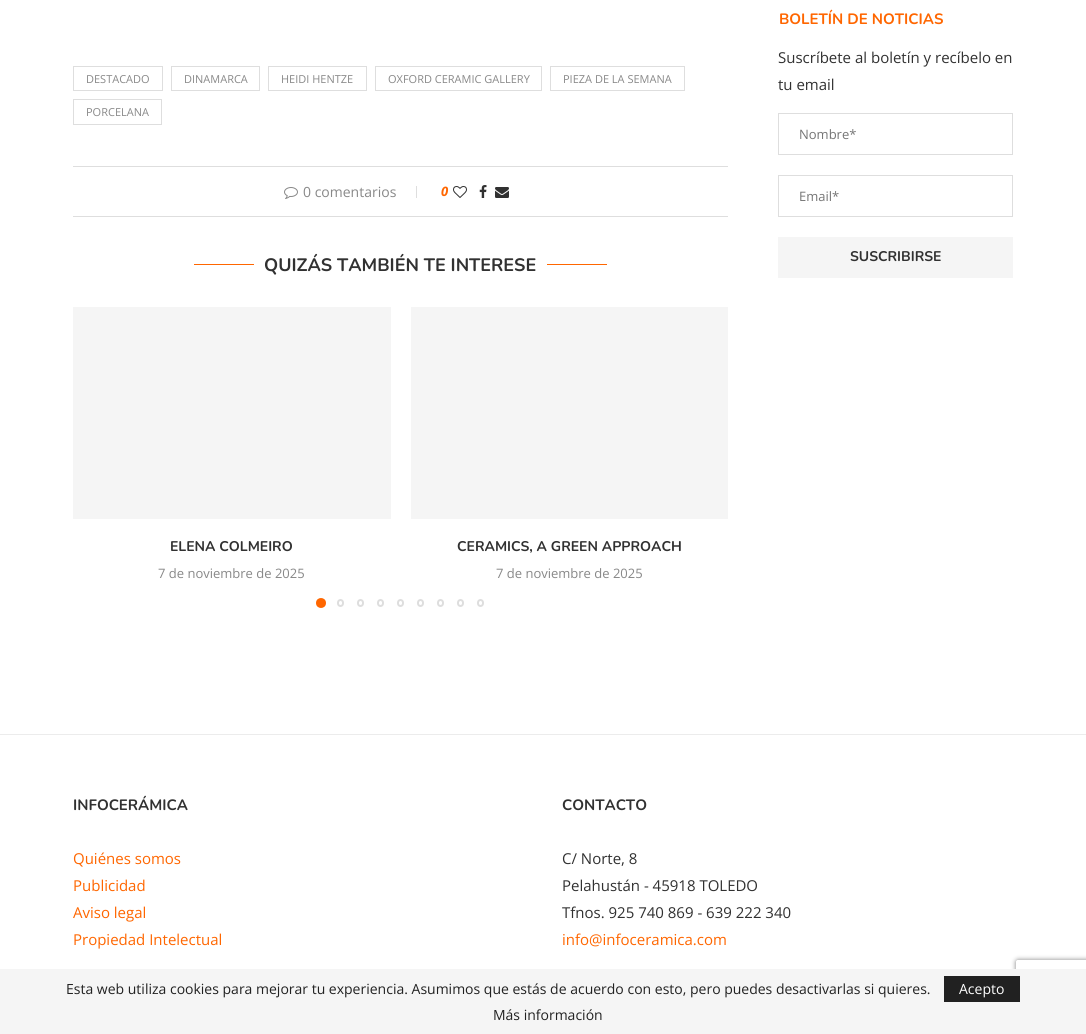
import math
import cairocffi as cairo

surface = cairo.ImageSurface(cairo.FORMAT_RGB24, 1086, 1034)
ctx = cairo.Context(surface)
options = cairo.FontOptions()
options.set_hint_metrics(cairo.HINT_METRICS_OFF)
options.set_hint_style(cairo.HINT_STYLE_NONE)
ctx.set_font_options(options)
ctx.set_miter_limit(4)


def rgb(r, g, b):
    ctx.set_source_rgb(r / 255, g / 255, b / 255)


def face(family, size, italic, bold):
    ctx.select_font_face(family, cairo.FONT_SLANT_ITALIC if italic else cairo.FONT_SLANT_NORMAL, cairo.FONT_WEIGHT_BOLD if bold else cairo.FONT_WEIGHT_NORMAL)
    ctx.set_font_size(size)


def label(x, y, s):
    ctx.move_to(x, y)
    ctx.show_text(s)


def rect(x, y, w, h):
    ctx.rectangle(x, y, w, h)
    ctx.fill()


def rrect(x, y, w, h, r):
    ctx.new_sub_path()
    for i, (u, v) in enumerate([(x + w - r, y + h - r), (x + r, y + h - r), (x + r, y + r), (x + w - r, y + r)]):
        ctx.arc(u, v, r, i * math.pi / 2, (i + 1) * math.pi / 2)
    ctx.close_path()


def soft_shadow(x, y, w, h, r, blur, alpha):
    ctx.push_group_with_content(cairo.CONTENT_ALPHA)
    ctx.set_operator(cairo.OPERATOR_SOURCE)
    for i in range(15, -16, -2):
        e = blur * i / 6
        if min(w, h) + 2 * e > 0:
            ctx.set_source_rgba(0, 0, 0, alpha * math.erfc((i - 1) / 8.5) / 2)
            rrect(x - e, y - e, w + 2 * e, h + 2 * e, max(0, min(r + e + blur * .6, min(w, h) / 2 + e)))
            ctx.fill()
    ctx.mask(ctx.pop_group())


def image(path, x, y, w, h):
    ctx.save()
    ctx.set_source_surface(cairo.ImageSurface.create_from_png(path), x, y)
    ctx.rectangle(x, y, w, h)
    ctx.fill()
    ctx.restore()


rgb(255, 255, 255)
ctx.paint()
ctx.rectangle(73.5, 66.5, 89, 24)
rgb(222, 222, 222)
ctx.set_line_width(1)
ctx.stroke()
face('Open Sans', 11, 0, 0)
rgb(136, 136, 136)
label(86, 83, 'DESTACADO')
ctx.rectangle(171.5, 66.5, 88, 24)
rgb(222, 222, 222)
ctx.stroke()
rgb(136, 136, 136)
label(184, 83, 'DINAMARCA')
ctx.rectangle(268.5, 66.5, 98, 24)
rgb(222, 222, 222)
ctx.stroke()
rgb(136, 136, 136)
label(281, 83, 'HEIDI HENTZE')
ctx.rectangle(375.5, 66.5, 166, 24)
rgb(222, 222, 222)
ctx.stroke()
rgb(136, 136, 136)
label(388, 83, 'OXFORD CERAMIC GALLERY')
ctx.rectangle(550.5, 66.5, 134, 24)
rgb(222, 222, 222)
ctx.stroke()
rgb(136, 136, 136)
label(563, 83, 'PIEZA DE LA SEMANA')
ctx.rectangle(73.5, 99.5, 88, 25)
rgb(222, 222, 222)
ctx.stroke()
rgb(136, 136, 136)
label(86, 116, 'PORCELANA')
rgb(222, 222, 222)
rect(73, 166, 655, 1)
image('image0.png', 284, 187, 14, 12)
face('Open Sans', 14, 0, 0)
rgb(136, 136, 136)
label(303, 197, '0 comentarios')
rgb(222, 222, 222)
rect(416, 186, 1, 12)
face('Open Sans', 13, 1, 1)
rgb(255, 102, 0)
label(441, 196, '0')
image('image1.png', 453, 186, 14, 12)
image('image2.png', 479, 185, 8, 13)
image('image3.png', 495, 187, 14, 11)
rgb(222, 222, 222)
rect(73, 216, 655, 1)
rgb(255, 102, 0)
rect(194, 264, 60, 1)
face('Nunito', 18, 0, 1)
rgb(49, 49, 49)
label(264, 271, 'QUIZÁS TAMBIÉN TE INTERESE')
rgb(255, 102, 0)
rect(547, 264, 60, 1)
rgb(245, 245, 245)
rect(73, 307, 318, 212)
face('Nunito', 14, 0, 1)
rgb(49, 49, 49)
label(170, 551, 'ELENA COLMEIRO')
face('Open Sans', 13, 0, 0)
rgb(136, 136, 136)
label(158, 578, '7 de noviembre de 2025')
rgb(245, 245, 245)
rect(411, 307, 317, 212)
face('Nunito', 14, 0, 1)
rgb(49, 49, 49)
label(457, 551, 'CERAMICS, A GREEN APPROACH')
face('Open Sans', 13, 0, 0)
rgb(136, 136, 136)
label(496, 578, '7 de noviembre de 2025')
rgb(255, 102, 0)
ctx.new_path()
ctx.arc(321, 603, 4, 0, 2 * math.pi)
ctx.fill_preserve()
ctx.set_line_width(2)
ctx.stroke()
rrect(338, 600, 5, 6, 2.5)
rgb(222, 222, 222)
ctx.stroke()
rrect(358, 600, 5, 6, 2.5)
ctx.stroke()
rrect(378, 600, 5, 6, 2.5)
ctx.stroke()
rrect(398, 600, 5, 6, 2.5)
ctx.stroke()
rrect(418, 600, 5, 6, 2.5)
ctx.stroke()
rrect(438, 600, 5, 6, 2.5)
ctx.stroke()
rrect(458, 600, 5, 6, 2.5)
ctx.stroke()
rrect(478, 600, 5, 6, 2.5)
ctx.stroke()
face('Nunito', 15, 0, 1)
rgb(255, 102, 0)
label(779, 24, 'BOLETÍN DE NOTICIAS')
face('Open Sans', 15, 0, 0)
rgb(49, 49, 49)
label(778, 63, 'Suscríbete al boletín y recíbelo en')
label(778, 90, 'tu email')
ctx.rectangle(778.5, 113.5, 234, 41)
rgb(222, 222, 222)
ctx.set_line_width(1)
ctx.stroke()
face('Open Sans', 13, 0, 0)
rgb(117, 117, 117)
label(799, 139, 'Nombre*')
ctx.rectangle(778.5, 175.5, 234, 41)
rgb(222, 222, 222)
ctx.stroke()
rgb(117, 117, 117)
label(799, 201, 'Email*')
rgb(245, 245, 245)
rect(778, 237, 235, 41)
face('Nunito', 14, 0, 1)
rgb(49, 49, 49)
label(850, 261, 'SUSCRIBIRSE')
rgb(236, 236, 236)
rect(0, 734, 1086, 1)
face('Nunito', 15, 0, 1)
rgb(49, 49, 49)
label(73, 810, 'INFOCERÁMICA')
face('Open Sans', 15, 0, 0)
rgb(255, 102, 0)
label(73, 864, 'Quiénes somos')
label(73, 891, 'Publicidad')
label(73, 918, 'Aviso legal')
label(73, 945, 'Propiedad Intelectual')
face('Nunito', 15, 0, 1)
rgb(49, 49, 49)
label(562, 810, 'CONTACTO')
face('Open Sans', 15, 0, 0)
label(562, 864, 'C/ Norte, 8')
label(562, 891, 'Pelahustán - 45918 TOLEDO')
label(562, 918, 'Tfnos. 925 740 869 - 639 222 340')
rgb(255, 102, 0)
label(562, 945, 'info@infoceramica.com')
ctx.save()
ctx.set_fill_rule(cairo.FILL_RULE_EVEN_ODD)
ctx.new_path()
ctx.move_to(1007, 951)
ctx.line_to(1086, 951)
ctx.line_to(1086, 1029)
ctx.line_to(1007, 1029)
ctx.close_path()
ctx.move_to(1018, 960)
ctx.line_to(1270, 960)
ctx.curve_to(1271, 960, 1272, 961, 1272, 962)
ctx.line_to(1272, 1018)
ctx.curve_to(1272, 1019, 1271, 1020, 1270, 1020)
ctx.line_to(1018, 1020)
ctx.curve_to(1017, 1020, 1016, 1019, 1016, 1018)
ctx.line_to(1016, 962)
ctx.curve_to(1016, 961, 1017, 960, 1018, 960)
ctx.close_path()
ctx.clip()
rgb(128, 128, 128)
soft_shadow(1016, 960, 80, 60, 2, 2.5, 1)
ctx.restore()
rgb(245, 245, 245)
rect(0, 969, 1086, 65)
face('Open Sans', 14, 0, 0)
rgb(33, 33, 33)
label(66, 994, 'Esta web utiliza cookies para mejorar tu experiencia. Asumimos que estás de acuerdo con esto, pero puedes desactivarlas si quieres.')
rect(944, 976, 76, 26)
rgb(255, 255, 255)
label(959, 994, 'Acepto')
rgb(33, 33, 33)
label(493, 1020, 'Más información')
surface.write_to_png('render.png')
